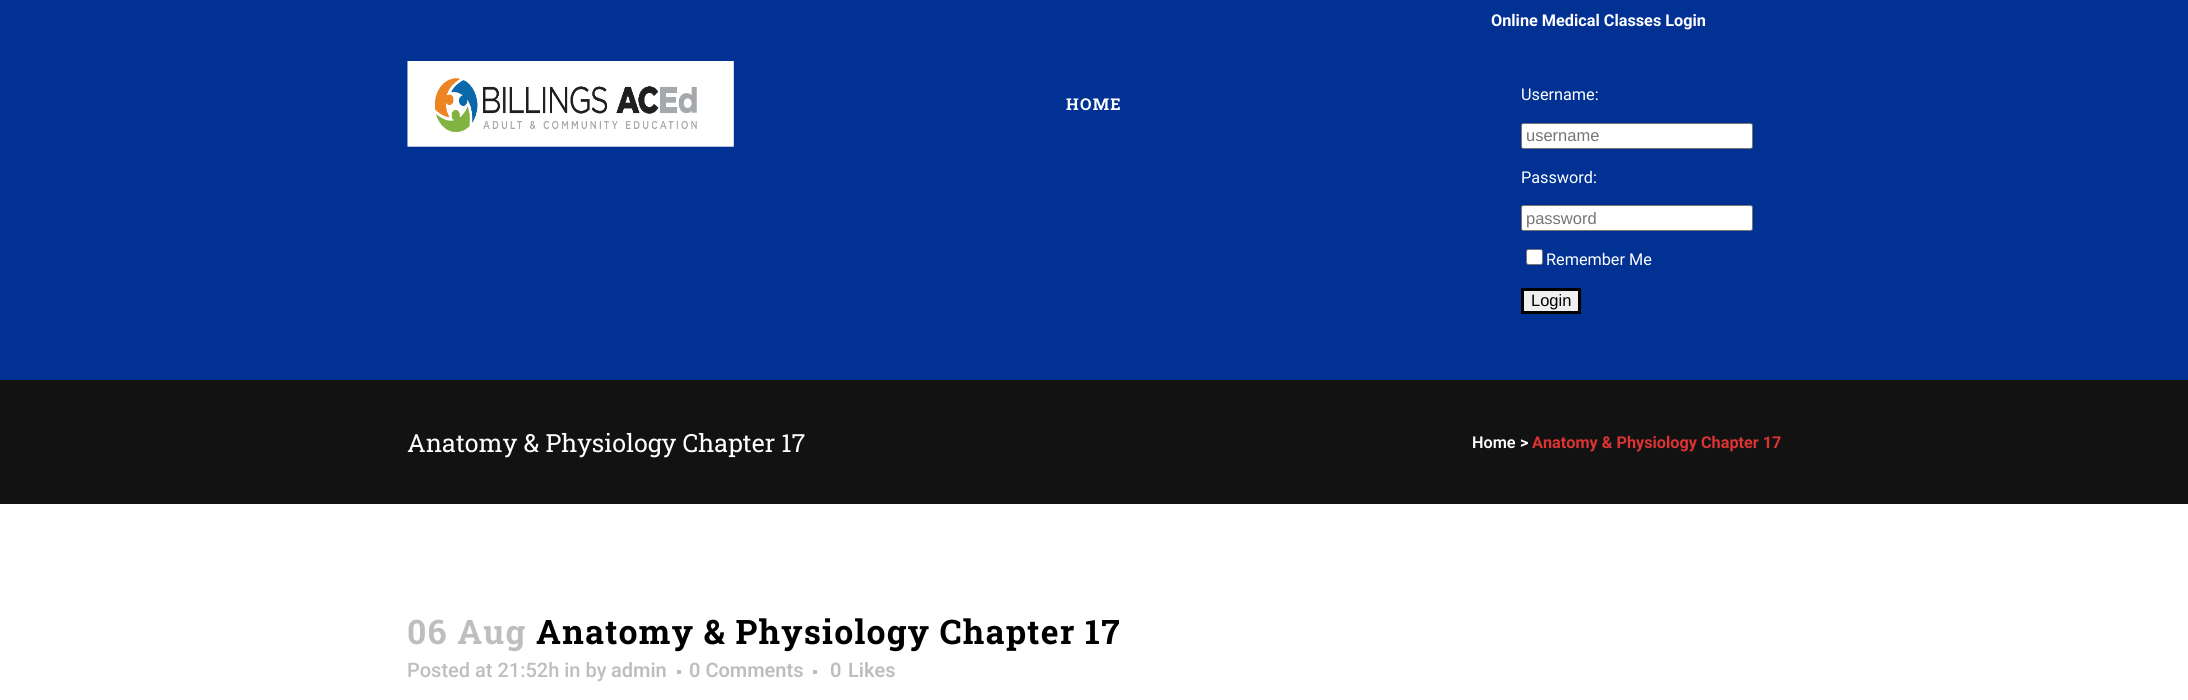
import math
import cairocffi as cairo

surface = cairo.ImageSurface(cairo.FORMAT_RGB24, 2188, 700)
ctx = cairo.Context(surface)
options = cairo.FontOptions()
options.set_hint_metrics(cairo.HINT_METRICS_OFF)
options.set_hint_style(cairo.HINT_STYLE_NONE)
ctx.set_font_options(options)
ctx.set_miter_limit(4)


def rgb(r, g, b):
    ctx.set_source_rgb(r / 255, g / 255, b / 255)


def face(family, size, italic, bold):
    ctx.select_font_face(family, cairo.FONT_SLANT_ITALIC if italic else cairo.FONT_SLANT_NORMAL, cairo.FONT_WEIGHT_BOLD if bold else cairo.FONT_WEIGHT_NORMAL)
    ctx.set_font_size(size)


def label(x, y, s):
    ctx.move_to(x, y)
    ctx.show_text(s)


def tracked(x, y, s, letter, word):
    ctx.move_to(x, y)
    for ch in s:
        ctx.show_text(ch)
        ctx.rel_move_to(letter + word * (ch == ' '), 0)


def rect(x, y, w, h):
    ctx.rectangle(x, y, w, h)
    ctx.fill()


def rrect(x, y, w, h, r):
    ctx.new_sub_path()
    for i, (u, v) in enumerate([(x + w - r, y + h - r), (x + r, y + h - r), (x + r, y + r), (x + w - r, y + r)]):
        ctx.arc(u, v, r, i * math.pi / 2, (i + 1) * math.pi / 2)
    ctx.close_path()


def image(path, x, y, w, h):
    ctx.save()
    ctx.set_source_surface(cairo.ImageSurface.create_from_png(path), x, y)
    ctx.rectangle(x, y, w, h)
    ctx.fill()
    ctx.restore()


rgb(255, 255, 255)
ctx.paint()
rgb(0, 49, 147)
rect(0, 0, 2188, 380)
image('image0.png', 407, 61, 327, 86)
face('Roboto Slab', 16.25, 0, 1)
rgb(255, 255, 255)
tracked(1066, 110, 'HOME', 1.25, 0)
face('Roboto', 16.25, 0, 1)
label(1491, 26, 'Online Medical Classes Login')
face('Roboto', 16.25, 0, 0)
label(1521, 100, 'Username:')
rrect(1521.5, 123.5, 231, 25, 2)
ctx.fill_preserve()
rgb(118, 118, 118)
ctx.set_line_width(1)
ctx.stroke()
face('Liberation Sans', 16.5, 0, 0)
rgb(117, 117, 117)
label(1526, 141, 'username')
face('Roboto', 16.25, 0, 0)
rgb(255, 255, 255)
label(1521, 183, 'Password:')
rrect(1521.5, 205.5, 231, 25, 2)
ctx.fill_preserve()
rgb(118, 118, 118)
ctx.stroke()
face('Liberation Sans', 16.5, 0, 0)
rgb(117, 117, 117)
label(1526, 224, 'password')
rgb(255, 255, 255)
rrect(1526.5, 249.5, 16, 15, 2)
ctx.fill_preserve()
rgb(118, 118, 118)
ctx.stroke()
face('Roboto', 16.25, 0, 0)
rgb(255, 255, 255)
label(1546, 265, 'Remember Me')
rgb(239, 239, 239)
ctx.rectangle(1522.5, 289.5, 57, 23)
ctx.fill_preserve()
rgb(0, 0, 0)
ctx.set_line_width(3)
ctx.stroke()
face('Liberation Sans', 16.5, 0, 0)
label(1531, 306, 'Login')
rgb(18, 18, 18)
rect(0, 380, 2188, 124)
face('Roboto Slab', 25, 0, 0)
rgb(255, 255, 255)
label(407, 452, 'Anatomy & Physiology Chapter 17')
face('Roboto SemiBold', 16.25, 0, 0)
label(1472, 448, 'Home')
face('Roboto', 16.25, 0, 1)
label(1520, 448, '>')
rgb(221, 51, 51)
label(1532, 448, 'Anatomy & Physiology Chapter 17')
face('Roboto Slab', 33.75, 0, 1)
rgb(190, 190, 190)
tracked(407, 644, '06 Aug', 1.25, 0)
rgb(0, 0, 0)
tracked(536, 644, 'Anatomy & Physiology Chapter 17', 1.25, 0)
face('Roboto Medium', 20, 0, 0)
rgb(190, 190, 190)
label(407, 677, 'Posted at 21:52h in by')
face('Roboto SemiBold', 20, 0, 0)
label(611, 677, 'admin')
rect(677, 670, 4, 4)
label(689, 677, '0 Comments')
rect(813, 670, 4, 4)
label(830, 677, '0')
label(848, 677, 'Likes')
surface.write_to_png('render.png')
